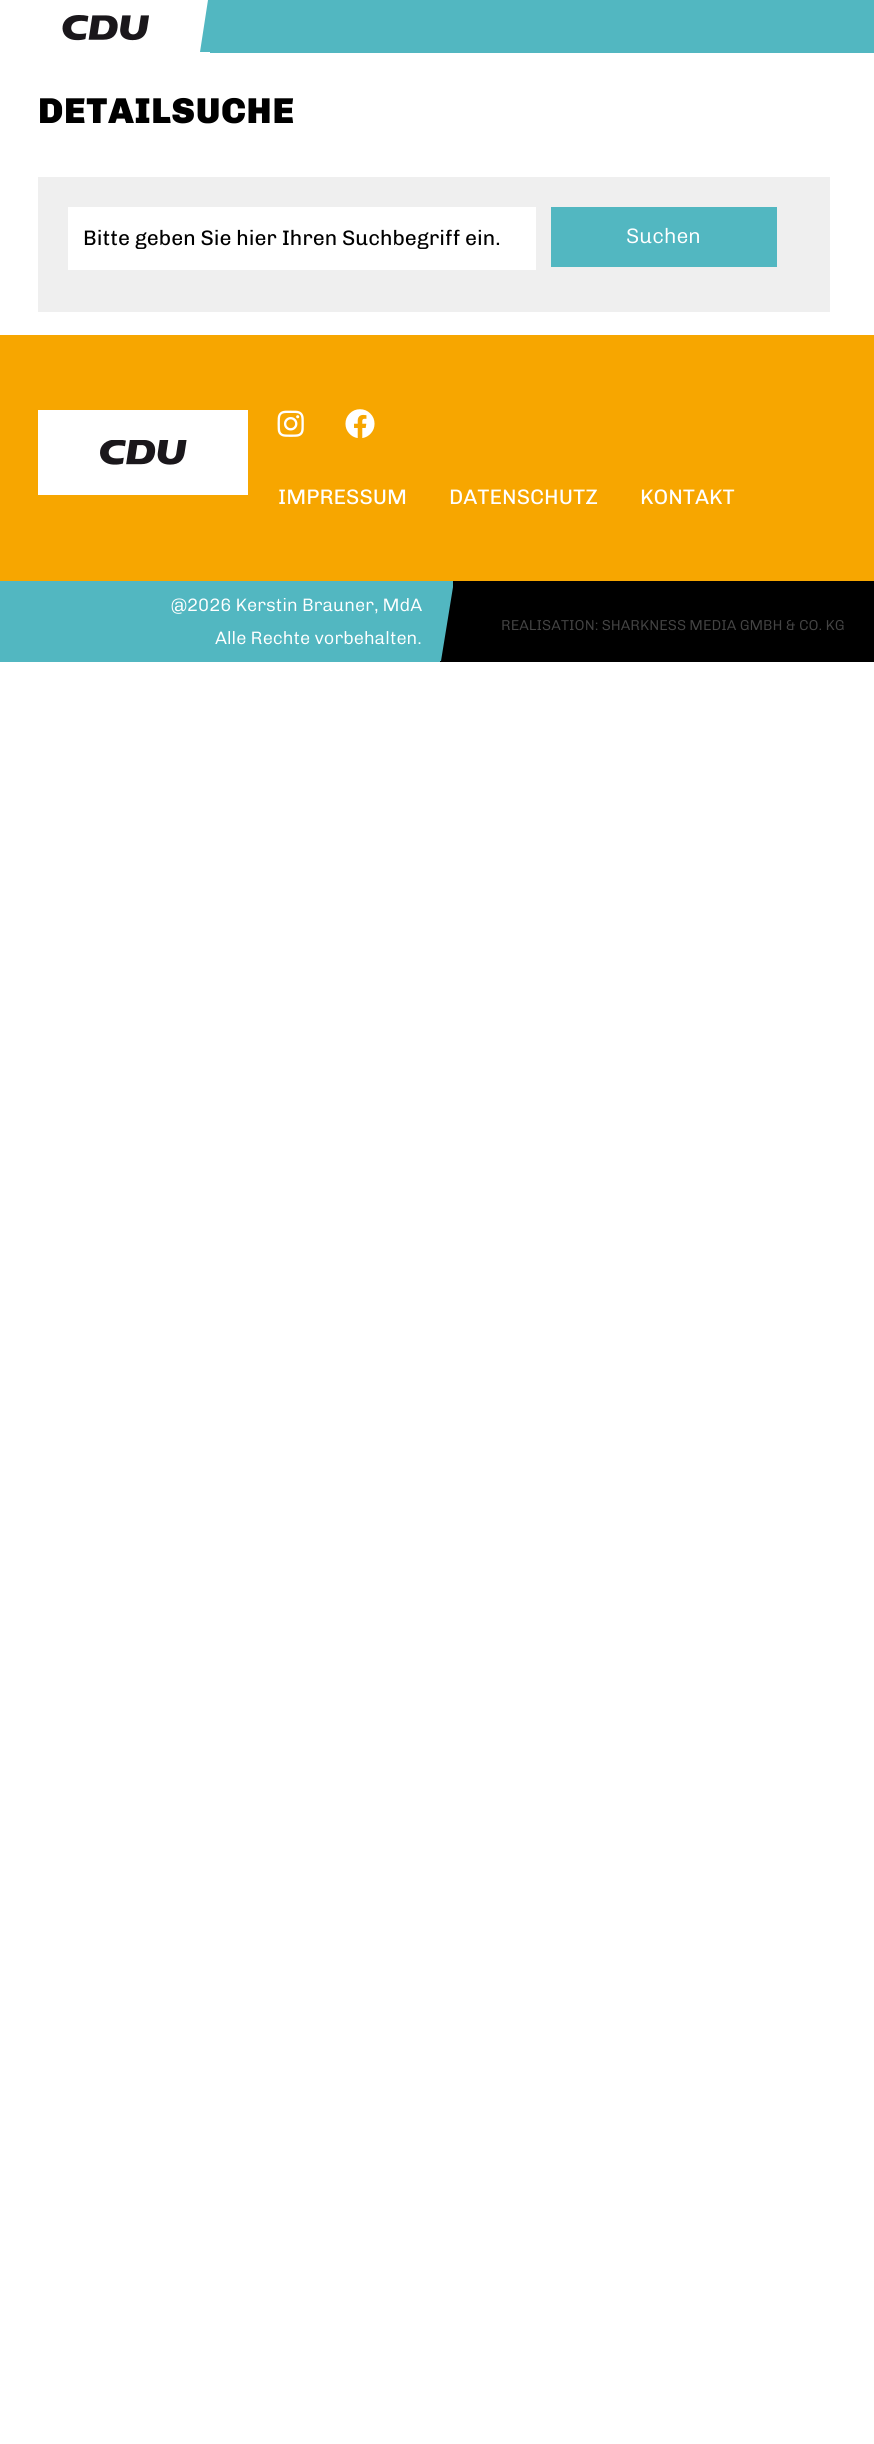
import math
import cairocffi as cairo

surface = cairo.ImageSurface(cairo.FORMAT_RGB24, 874, 2444)
ctx = cairo.Context(surface)
options = cairo.FontOptions()
options.set_hint_metrics(cairo.HINT_METRICS_OFF)
options.set_hint_style(cairo.HINT_STYLE_NONE)
ctx.set_font_options(options)
ctx.set_miter_limit(4)


def rgb(r, g, b):
    ctx.set_source_rgb(r / 255, g / 255, b / 255)


def face(family, size, italic, bold):
    ctx.select_font_face(family, cairo.FONT_SLANT_ITALIC if italic else cairo.FONT_SLANT_NORMAL, cairo.FONT_WEIGHT_BOLD if bold else cairo.FONT_WEIGHT_NORMAL)
    ctx.set_font_size(size)


def label(x, y, s):
    ctx.move_to(x, y)
    ctx.show_text(s)


def tracked(x, y, s, letter, word):
    ctx.move_to(x, y)
    for ch in s:
        ctx.show_text(ch)
        ctx.rel_move_to(letter + word * (ch == ' '), 0)


def rect(x, y, w, h):
    ctx.rectangle(x, y, w, h)
    ctx.fill()


def image(path, x, y, w, h):
    ctx.save()
    ctx.set_source_surface(cairo.ImageSurface.create_from_png(path), x, y)
    ctx.rectangle(x, y, w, h)
    ctx.fill()
    ctx.restore()


rgb(255, 255, 255)
ctx.paint()
image('image0.png', 62, 15, 87, 26)
rgb(82, 183, 193)
ctx.new_path()
ctx.move_to(210, 0)
ctx.line_to(208, 0)
ctx.line_to(200, 52)
ctx.line_to(210, 52)
ctx.close_path()
ctx.fill()
rect(210, 0, 664, 53)
face('Chivo Black', 36, 0, 0)
rgb(0, 0, 0)
tracked(38, 123, 'DETAILSUCHE', 0.75, 0)
rgb(239, 239, 239)
rect(38, 177, 792, 135)
rgb(255, 255, 255)
rect(68, 207, 468, 63)
face('Chivo', 21, 0, 0)
rgb(0, 0, 0)
label(83, 245, 'Bitte geben Sie hier Ihren Suchbegriff ein.')
rgb(82, 183, 193)
rect(551, 207, 226, 60)
face('Chivo Light', 21, 0, 0)
rgb(255, 255, 255)
label(626, 243, 'Suchen')
rgb(247, 166, 0)
rect(0, 335, 874, 246)
rgb(255, 255, 255)
rect(38, 410, 210, 85)
image('image1.png', 100, 440, 87, 25)
image('image2.png', 277, 410, 27, 27)
image('image3.png', 345, 409, 30, 29)
face('Chivo', 21, 0, 0)
label(278, 504, 'IMPRESSUM')
label(449, 504, 'DATENSCHUTZ')
label(640, 504, 'KONTAKT')
rgb(0, 0, 0)
rect(440, 581, 434, 81)
rgb(82, 183, 193)
rect(0, 581, 438, 81)
face('Chivo Light', 18, 0, 0)
rgb(255, 255, 255)
label(171, 611, '@2026 Kerstin Brauner, MdA')
ctx.save()
ctx.rectangle(438, 581, 15, 81)
ctx.clip()
rgb(82, 183, 193)
ctx.new_path()
ctx.move_to(438, 661)
ctx.line_to(441, 661)
ctx.line_to(454, 581)
ctx.line_to(438, 581)
ctx.close_path()
ctx.fill()
ctx.restore()
rgb(82, 183, 193)
rect(438, 661, 2, 1)
rgb(255, 255, 255)
label(215, 644, 'Alle Rechte vorbehalten.')
face('Chivo Light', 14.4, 0, 0)
rgb(68, 68, 68)
label(501, 630, 'REALISATION: SHARKNESS MEDIA GMBH & CO. KG')
surface.write_to_png('render.png')
